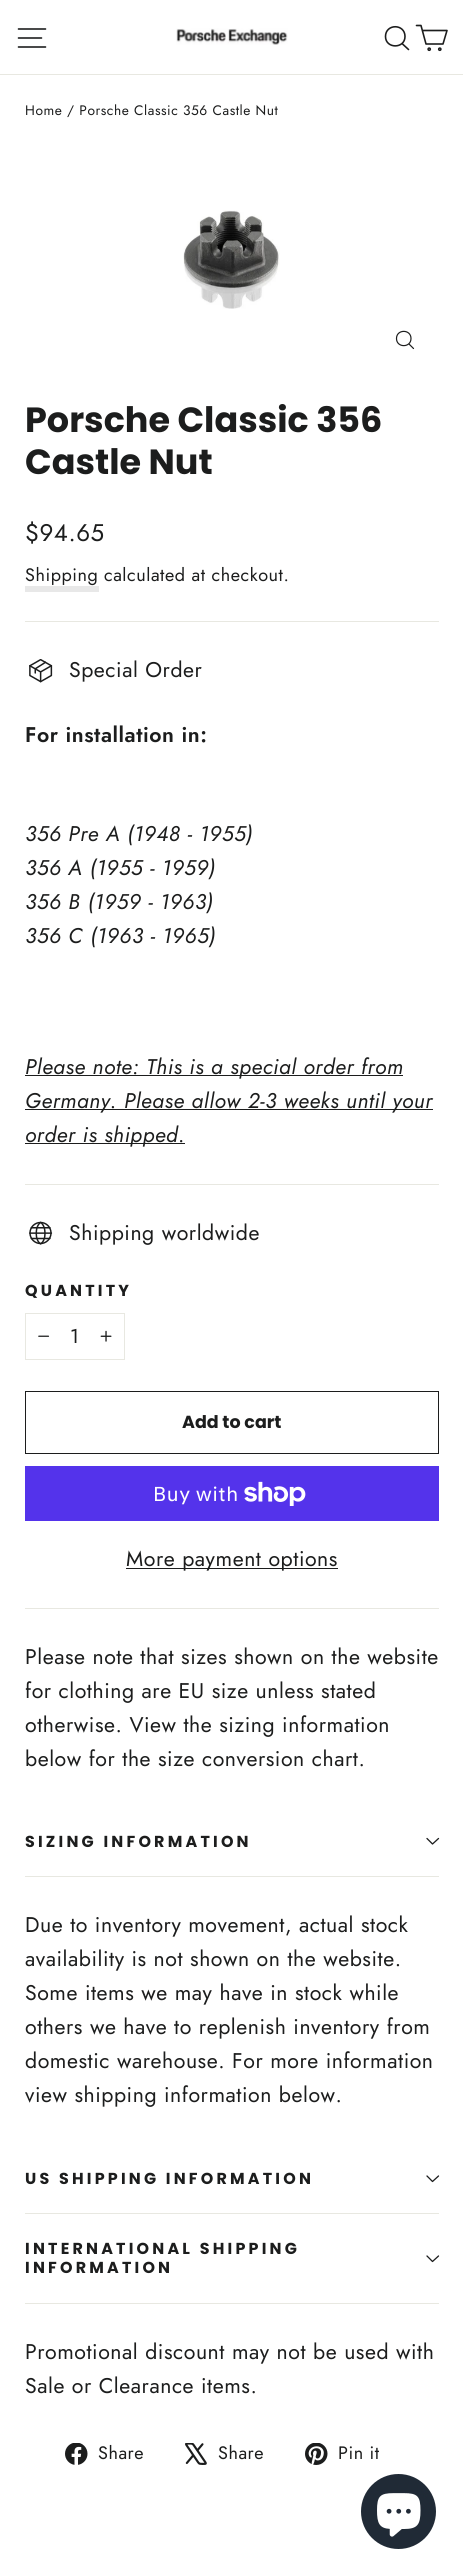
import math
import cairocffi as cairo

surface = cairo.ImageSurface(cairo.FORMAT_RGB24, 463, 2575)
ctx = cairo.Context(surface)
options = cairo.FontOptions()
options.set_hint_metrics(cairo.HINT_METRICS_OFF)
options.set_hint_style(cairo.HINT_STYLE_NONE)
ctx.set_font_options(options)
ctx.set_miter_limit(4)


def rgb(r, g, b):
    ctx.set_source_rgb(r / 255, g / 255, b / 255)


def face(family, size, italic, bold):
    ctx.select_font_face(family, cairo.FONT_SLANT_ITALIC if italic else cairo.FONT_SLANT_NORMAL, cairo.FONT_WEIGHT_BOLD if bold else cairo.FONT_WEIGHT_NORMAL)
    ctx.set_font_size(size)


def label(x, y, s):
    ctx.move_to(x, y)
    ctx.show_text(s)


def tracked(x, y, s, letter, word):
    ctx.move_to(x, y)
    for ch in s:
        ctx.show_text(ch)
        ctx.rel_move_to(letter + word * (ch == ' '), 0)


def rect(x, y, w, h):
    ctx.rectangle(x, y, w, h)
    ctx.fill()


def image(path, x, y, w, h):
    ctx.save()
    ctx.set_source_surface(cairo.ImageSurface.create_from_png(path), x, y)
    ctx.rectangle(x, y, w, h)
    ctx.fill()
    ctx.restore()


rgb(255, 255, 255)
ctx.paint()
rgb(232, 232, 225)
rect(0, 74, 463, 1)
ctx.new_path()
ctx.move_to(18.5, 29)
ctx.line_to(45.5, 29)
ctx.move_to(18.5, 38)
ctx.line_to(41.5, 38)
ctx.move_to(18.5, 47)
ctx.line_to(45.5, 47)
rgb(28, 29, 29)
ctx.set_line_width(1.6)
ctx.set_line_cap(cairo.LINE_CAP_ROUND)
ctx.set_line_join(cairo.LINE_JOIN_ROUND)
ctx.stroke()
image('image0.png', 176, 28, 112, 17)
ctx.new_path()
ctx.move_to(405, 36.5)
ctx.curve_to(405, 49, 385.5, 49, 385.5, 36.5)
ctx.curve_to(385.5, 23.5, 405, 23.5, 405, 36.5)
ctx.close_path()
ctx.move_to(408.5, 49.5)
ctx.line_to(402, 43.5)
ctx.stroke()
ctx.new_path()
ctx.move_to(422.5, 30.5)
ctx.line_to(447, 30.5)
ctx.line_to(443, 44)
ctx.line_to(426, 44)
ctx.line_to(421, 25.5)
ctx.line_to(416.5, 25.5)
ctx.stroke()
ctx.arc(429.2, 49.2, 1.1, 0, 2 * math.pi)
ctx.set_line_cap(cairo.LINE_CAP_BUTT)
ctx.set_line_join(cairo.LINE_JOIN_MITER)
ctx.stroke()
ctx.arc(439.8, 49.2, 1.1, 0, 2 * math.pi)
ctx.stroke()
face('Jost', 13.75, 0, 0)
tracked(25, 115, 'Home / Porsche Classic 356 Castle Nut', 0.55, 0)
image('image1.png', 183, 210, 97, 99)
ctx.new_path()
ctx.move_to(411, 338.5)
ctx.curve_to(411, 348, 396.5, 348, 396.5, 338.5)
ctx.curve_to(396.5, 329, 411, 329, 411, 338.5)
ctx.close_path()
ctx.move_to(413.5, 348.5)
ctx.line_to(409, 344)
ctx.set_line_width(1.2)
ctx.set_line_cap(cairo.LINE_CAP_ROUND)
ctx.set_line_join(cairo.LINE_JOIN_ROUND)
ctx.stroke()
face('Poppins', 35, 0, 1)
label(25, 432, 'Porsche Classic 356')
label(25, 474, 'Castle Nut')
face('Jost', 24, 0, 0)
tracked(25, 541, '$94.65', 0.55, 0)
face('Jost', 18, 0, 0)
tracked(25, 581, 'Shipping', 0.55, 0)
rgb(232, 232, 232)
rect(25, 586, 74, 6)
rgb(28, 29, 29)
tracked(104, 581, 'calculated at checkout.', 0.55, 0)
rgb(232, 232, 225)
rect(25, 621, 414, 1)
image('image2.png', 29, 659, 24, 24)
face('Jost', 21.25, 0, 0)
rgb(28, 29, 29)
tracked(69, 677, 'Special Order', 0.55, 0)
face('Jost SemiBold', 21.25, 0, 0)
tracked(25, 742, 'For installation in:', 0.55, 0)
face('Jost', 21.25, 1, 0)
tracked(25, 841, '356 Pre A (1948 - 1955)', 0.55, 0)
tracked(25, 875, '356 A (1955 - 1959)', 0.55, 0)
tracked(25, 909, '356 B (1959 - 1963)', 0.55, 0)
tracked(25, 943, '356 C (1963 - 1965)', 0.55, 0)
rect(25, 1075, 378, 1)
tracked(25, 1074, 'Please note: This is a special order from', 0.55, 0)
rect(25, 1109, 408, 1)
tracked(25, 1108, 'Germany. Please allow 2-3 weeks until your', 0.55, 0)
rect(25, 1143, 160, 1)
tracked(25, 1142, 'order is shipped.', 0.55, 0)
rgb(232, 232, 225)
rect(25, 1184, 414, 1)
image('image3.png', 29, 1221, 24, 24)
face('Jost', 21.25, 0, 0)
rgb(28, 29, 29)
tracked(69, 1240, 'Shipping worldwide', 0.55, 0)
face('Poppins', 15.9, 0, 1)
tracked(25, 1296, 'QUANTITY', 3.2, 0)
ctx.rectangle(25.5, 1313.5, 99, 46)
rgb(232, 232, 225)
ctx.set_line_width(1)
ctx.set_line_cap(cairo.LINE_CAP_BUTT)
ctx.set_line_join(cairo.LINE_JOIN_MITER)
ctx.stroke()
image('image4.png', 38, 1335, 12, 2)
face('Jost', 20, 0, 0)
rgb(28, 29, 29)
label(70, 1343, '1')
image('image5.png', 100, 1330, 12, 12)
ctx.rectangle(25.5, 1391.5, 413, 62)
ctx.stroke()
face('Poppins', 17.5, 0, 1)
label(182, 1428, 'Add to cart')
rgb(84, 51, 235)
rect(25, 1466, 414, 55)
face('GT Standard', 20, 0, 0)
rgb(255, 255, 255)
tracked(153, 1501, 'Buy with', 0.55, 0)
image('image6.png', 244, 1481, 62, 25)
rgb(28, 29, 29)
rect(126, 1568, 212, 1)
face('Jost', 21.25, 0, 0)
tracked(126, 1566, 'More payment options', 0.55, 0)
rgb(232, 232, 225)
rect(25, 1608, 414, 1)
rgb(28, 29, 29)
tracked(25, 1664, 'Please note that sizes shown on the website', 0.55, 0)
tracked(25, 1698, 'for clothing are EU size unless stated', 0.55, 0)
tracked(25, 1732, 'otherwise. View the sizing information', 0.55, 0)
tracked(25, 1766, 'below for the size conversion chart.', 0.55, 0)
rgb(232, 232, 225)
rect(25, 1876, 414, 1)
face('Poppins', 15.9, 0, 1)
rgb(28, 29, 29)
tracked(25, 1847, 'SIZING INFORMATION', 3.2, 0)
ctx.new_path()
ctx.move_to(427, 1838.5)
ctx.line_to(432.5, 1844)
ctx.line_to(438.5, 1838.5)
ctx.set_line_width(1.3)
ctx.set_line_cap(cairo.LINE_CAP_ROUND)
ctx.set_line_join(cairo.LINE_JOIN_ROUND)
ctx.stroke()
face('Jost', 21.25, 0, 0)
tracked(25, 1932, 'Due to inventory movement, actual stock', 0.55, 0)
tracked(25, 1966, 'availability is not shown on the website.', 0.55, 0)
tracked(25, 2000, 'Some items we may have in stock while', 0.55, 0)
tracked(25, 2034, 'others we have to replenish inventory from', 0.55, 0)
tracked(25, 2068, 'domestic warehouse. For more information', 0.55, 0)
tracked(25, 2102, 'view shipping information below.', 0.55, 0)
rgb(232, 232, 225)
rect(25, 2213, 414, 1)
face('Poppins', 15.9, 0, 1)
rgb(28, 29, 29)
tracked(25, 2184, 'US SHIPPING INFORMATION', 3.2, 0)
ctx.new_path()
ctx.move_to(427, 2176)
ctx.line_to(432.5, 2181.5)
ctx.line_to(438.5, 2176)
ctx.stroke()
rgb(232, 232, 225)
rect(25, 2303, 414, 1)
rgb(28, 29, 29)
tracked(25, 2254, 'INTERNATIONAL SHIPPING', 3.2, 0)
ctx.new_path()
ctx.move_to(427, 2256)
ctx.line_to(432.5, 2261.5)
ctx.line_to(438.5, 2256)
ctx.stroke()
tracked(25, 2273, 'INFORMATION', 3.2, 0)
face('Jost', 21.25, 0, 0)
tracked(25, 2359, 'Promotional discount may not be used with', 0.55, 0)
tracked(25, 2393, 'Sale or Clearance items.', 0.55, 0)
image('image7.png', 65, 2443, 23, 22)
face('Jost', 18, 0, 0)
tracked(98, 2459, 'Share', 0.55, 0)
image('image8.png', 185, 2443, 22, 22)
tracked(218, 2459, 'Share', 0.55, 0)
image('image9.png', 305, 2443, 23, 22)
tracked(338, 2459, 'Pin it', 0.55, 0)
rgb(32, 42, 54)
ctx.new_path()
ctx.arc(398.5, 2511.5, 37.5, 0, 2 * math.pi)
ctx.fill()
image('image10.png', 377, 2493, 44, 44)
surface.write_to_png('render.png')
